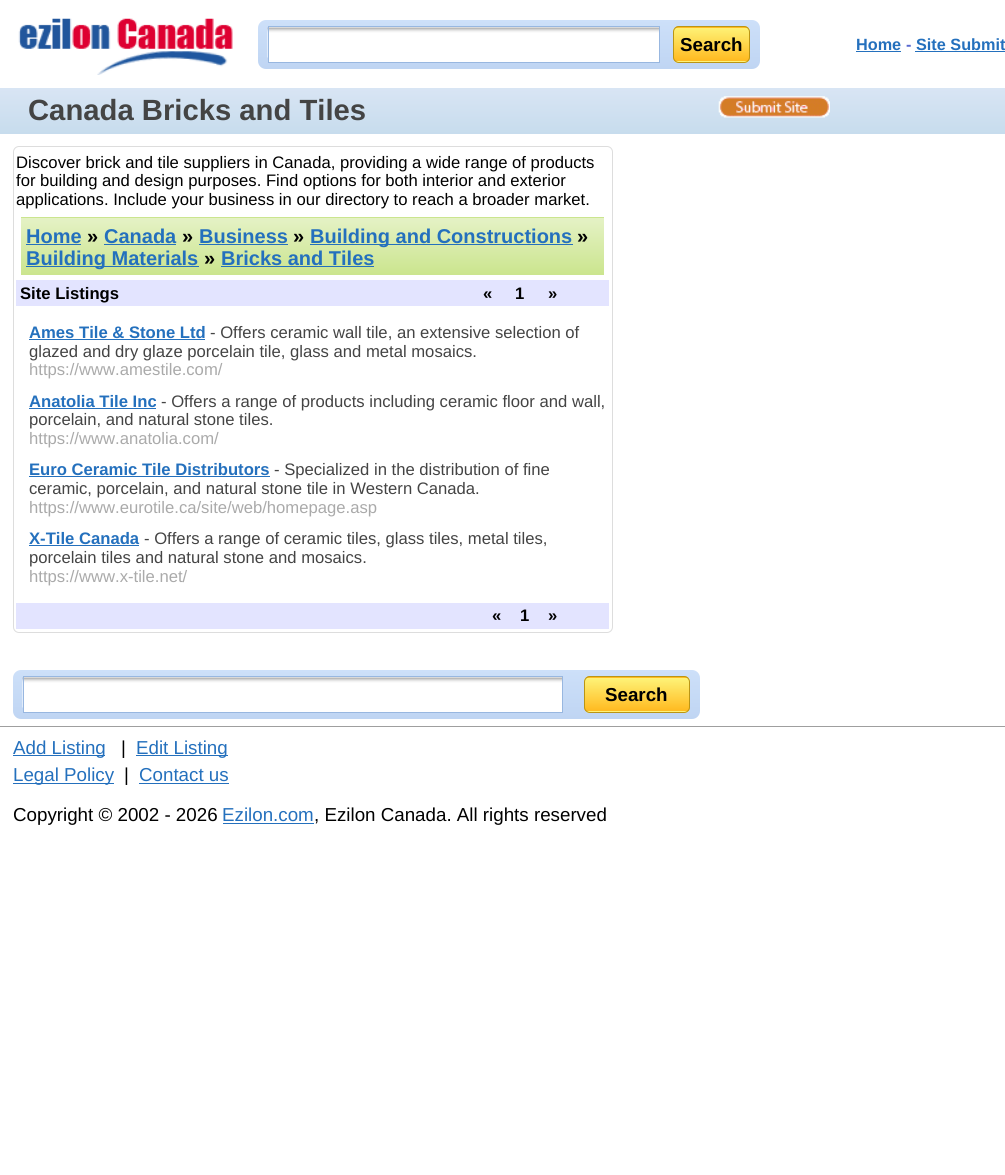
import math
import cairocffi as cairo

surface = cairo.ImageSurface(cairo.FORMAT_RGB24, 1005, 1175)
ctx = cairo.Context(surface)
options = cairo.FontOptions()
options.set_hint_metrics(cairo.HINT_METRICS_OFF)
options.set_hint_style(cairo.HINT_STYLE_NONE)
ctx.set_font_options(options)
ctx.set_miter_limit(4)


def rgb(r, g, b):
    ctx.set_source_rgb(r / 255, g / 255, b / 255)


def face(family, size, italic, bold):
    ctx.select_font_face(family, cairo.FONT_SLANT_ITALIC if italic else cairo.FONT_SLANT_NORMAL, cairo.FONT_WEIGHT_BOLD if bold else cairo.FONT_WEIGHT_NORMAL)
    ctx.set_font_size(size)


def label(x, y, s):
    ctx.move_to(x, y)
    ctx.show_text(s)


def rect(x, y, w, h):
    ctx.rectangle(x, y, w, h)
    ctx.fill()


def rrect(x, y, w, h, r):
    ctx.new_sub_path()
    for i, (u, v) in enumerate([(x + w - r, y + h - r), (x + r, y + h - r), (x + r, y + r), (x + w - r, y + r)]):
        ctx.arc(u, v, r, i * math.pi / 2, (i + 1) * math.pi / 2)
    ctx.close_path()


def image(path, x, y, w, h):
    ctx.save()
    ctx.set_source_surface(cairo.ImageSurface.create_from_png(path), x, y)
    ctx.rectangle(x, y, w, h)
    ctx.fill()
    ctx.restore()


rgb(255, 255, 255)
ctx.paint()
image('image0.png', 18, 18, 215, 57)
gradient = cairo.LinearGradient(509, 20, 509, 69)
gradient.add_color_stop_rgba(0, 0.804, 0.878, 0.976, 1)
gradient.add_color_stop_rgba(1, 0.749, 0.835, 0.953, 1)
ctx.set_source(gradient)
rrect(258, 20, 502, 49, 8)
ctx.fill()
rgb(255, 255, 255)
rect(269, 27, 390, 35)
image('image1.png', 267, 27, 392, 31)
ctx.rectangle(268.5, 26.5, 391, 36)
rgb(152, 183, 224)
ctx.set_line_width(1)
ctx.stroke()
ctx.save()
rrect(673, 26, 77, 37, 6)
ctx.clip()
gradient = cairo.LinearGradient(711, -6.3, 711, 28)
gradient.add_color_stop_rgba(0, 0.996, 0.953, 0.471, 1)
gradient.add_color_stop_rgba(1, 1, 0.729, 0.125, 1)
ctx.set_source(gradient)
rect(673, 26, 77, 2)
gradient = cairo.LinearGradient(711, 27, 711, 61)
gradient.add_color_stop_rgba(0, 0.996, 0.953, 0.471, 1)
gradient.add_color_stop_rgba(1, 1, 0.729, 0.125, 1)
ctx.set_source(gradient)
rect(673, 28, 77, 33)
gradient = cairo.LinearGradient(711, 61, 711, 95)
gradient.add_color_stop_rgba(0, 0.996, 0.953, 0.471, 1)
gradient.add_color_stop_rgba(1, 1, 0.729, 0.125, 1)
ctx.set_source(gradient)
rect(673, 61, 77, 2)
ctx.restore()
rrect(673.5, 26.5, 76, 36, 5.5)
rgb(186, 149, 21)
ctx.stroke()
face('Liberation Sans', 18.75, 0, 1)
rgb(0, 0, 0)
label(680, 51, 'Search')
face('Liberation Sans', 16.25, 0, 1)
rgb(36, 112, 189)
label(856, 50, 'Home')
rect(856, 51, 45, 1)
rgb(88, 104, 208)
label(906, 50, '-')
rgb(36, 112, 189)
label(916, 50, 'Site Submit')
rect(915, 51, 90, 1)
gradient = cairo.LinearGradient(503, 87, 503, 134)
gradient.add_color_stop_rgba(0, 0.851, 0.898, 0.957, 1)
gradient.add_color_stop_rgba(1, 0.78, 0.863, 0.929, 1)
ctx.set_source(gradient)
rect(0, 88, 1005, 46)
face('Liberation Sans', 29.25, 0, 1)
rgb(68, 68, 68)
label(28, 120, 'Canada Bricks and Tiles')
image('image2.png', 718, 96, 112, 22)
rrect(13.5, 146.5, 599, 486, 5.5)
rgb(221, 221, 221)
ctx.stroke()
face('Liberation Sans', 16.65, 0, 0)
rgb(0, 0, 0)
label(16, 168, 'Discover brick and tile suppliers in Canada, providing a wide range of products')
label(16, 186, 'for building and design purposes. Find options for both interior and exterior')
label(16, 205, 'applications. Include your business in our directory to reach a broader market.')
gradient = cairo.LinearGradient(313, 160, 313, 218)
gradient.add_color_stop_rgba(0, 0.898, 0.949, 0.776, 1)
gradient.add_color_stop_rgba(1, 0.796, 0.898, 0.557, 1)
ctx.set_source(gradient)
rect(21, 217, 583, 1)
gradient = cairo.LinearGradient(313, 217, 313, 275)
gradient.add_color_stop_rgba(0, 0.898, 0.949, 0.776, 1)
gradient.add_color_stop_rgba(1, 0.796, 0.898, 0.557, 1)
ctx.set_source(gradient)
rect(21, 218, 583, 57)
face('Liberation Sans', 20, 0, 1)
rgb(36, 112, 189)
label(26, 243, 'Home')
rect(26, 244, 55, 1)
rgb(0, 0, 0)
label(87, 243, '»')
rgb(36, 112, 189)
label(104, 243, 'Canada')
rect(104, 244, 72, 1)
rgb(0, 0, 0)
label(182, 243, '»')
rgb(36, 112, 189)
label(199, 243, 'Business')
rect(199, 244, 89, 1)
rgb(0, 0, 0)
label(293, 243, '»')
rgb(36, 112, 189)
rect(310, 244, 263, 1)
label(310, 243, 'Building and Constructions')
rgb(0, 0, 0)
label(577, 243, '»')
rgb(36, 112, 189)
rect(26, 266, 173, 1)
label(26, 265, 'Building Materials')
rgb(0, 0, 0)
label(204, 265, '»')
rgb(36, 112, 189)
label(221, 265, 'Bricks and Tiles')
rect(221, 266, 153, 1)
rgb(227, 228, 255)
rect(16, 280, 593, 26)
face('Liberation Sans', 16.65, 0, 1)
rgb(0, 0, 0)
label(20, 299, 'Site Listings')
label(483, 299, '«')
label(515, 299, '1')
label(548, 299, '»')
rgb(36, 112, 189)
label(29, 338, 'Ames Tile & Stone Ltd')
rect(29, 339, 176, 1)
face('Liberation Sans', 16.65, 0, 0)
rgb(68, 68, 68)
label(210, 338, '- Offers ceramic wall tile, an extensive selection of')
label(29, 357, 'glazed and dry glaze porcelain tile, glass and metal mosaics.')
rgb(170, 170, 170)
label(29, 375, 'https://www.amestile.com/')
face('Liberation Sans', 16.65, 0, 1)
rgb(36, 112, 189)
label(29, 407, 'Anatolia Tile Inc')
rect(29, 408, 127, 1)
face('Liberation Sans', 16.65, 0, 0)
rgb(68, 68, 68)
label(161, 407, '- Offers a range of products including ceramic floor and wall,')
label(29, 425, 'porcelain, and natural stone tiles.')
rgb(170, 170, 170)
label(29, 444, 'https://www.anatolia.com/')
face('Liberation Sans', 16.65, 0, 1)
rgb(36, 112, 189)
label(29, 475, 'Euro Ceramic Tile Distributors')
rect(29, 476, 241, 1)
face('Liberation Sans', 16.65, 0, 0)
rgb(68, 68, 68)
label(274, 475, '- Specialized in the distribution of fine')
label(29, 494, 'ceramic, porcelain, and natural stone tile in Western Canada.')
rgb(170, 170, 170)
label(29, 513, 'https://www.eurotile.ca/site/web/homepage.asp')
face('Liberation Sans', 16.65, 0, 1)
rgb(36, 112, 189)
label(29, 544, 'X-Tile Canada')
rect(29, 545, 110, 1)
face('Liberation Sans', 16.65, 0, 0)
rgb(68, 68, 68)
label(144, 544, '- Offers a range of ceramic tiles, glass tiles, metal tiles,')
label(29, 563, 'porcelain tiles and natural stone and mosaics.')
rgb(170, 170, 170)
label(29, 582, 'https://www.x-tile.net/')
rgb(227, 228, 255)
rect(16, 603, 593, 26)
face('Liberation Sans', 16.65, 0, 1)
rgb(0, 0, 0)
label(492, 621, '«')
label(520, 621, '1')
label(548, 621, '»')
gradient = cairo.LinearGradient(356, 670, 356, 719)
gradient.add_color_stop_rgba(0, 0.804, 0.878, 0.976, 1)
gradient.add_color_stop_rgba(1, 0.749, 0.835, 0.953, 1)
ctx.set_source(gradient)
rrect(13, 670, 687, 49, 8)
ctx.fill()
rgb(255, 255, 255)
rect(24, 677, 538, 35)
image('image3.png', 22, 677, 540, 31)
ctx.rectangle(23.5, 676.5, 539, 36)
rgb(152, 183, 224)
ctx.stroke()
ctx.save()
rrect(584, 676, 106, 37, 6)
ctx.clip()
gradient = cairo.LinearGradient(637, 644, 637, 678)
gradient.add_color_stop_rgba(0, 0.996, 0.953, 0.471, 1)
gradient.add_color_stop_rgba(1, 1, 0.729, 0.125, 1)
ctx.set_source(gradient)
rect(584, 676, 106, 2)
gradient = cairo.LinearGradient(637, 678, 637, 711)
gradient.add_color_stop_rgba(0, 0.996, 0.953, 0.471, 1)
gradient.add_color_stop_rgba(1, 1, 0.729, 0.125, 1)
ctx.set_source(gradient)
rect(584, 678, 106, 33)
gradient = cairo.LinearGradient(637, 711, 637, 745)
gradient.add_color_stop_rgba(0, 0.996, 0.953, 0.471, 1)
gradient.add_color_stop_rgba(1, 1, 0.729, 0.125, 1)
ctx.set_source(gradient)
rect(584, 711, 106, 2)
ctx.restore()
rrect(584.5, 676.5, 105, 36, 5.5)
rgb(186, 149, 21)
ctx.stroke()
face('Liberation Sans', 18.75, 0, 1)
rgb(0, 0, 0)
label(605, 701, 'Search')
rgb(159, 159, 159)
rect(0, 726, 1005, 1)
rgb(36, 112, 189)
rect(13, 755, 92, 1)
face('Liberation Sans', 18.75, 0, 0)
label(13, 754, 'Add Listing')
rgb(0, 0, 0)
label(121, 754, '|')
rgb(36, 112, 189)
rect(136, 755, 92, 1)
label(136, 754, 'Edit Listing')
rect(13, 783, 101, 1)
label(13, 781, 'Legal Policy')
rgb(0, 0, 0)
label(124, 781, '|')
rgb(36, 112, 189)
label(139, 781, 'Contact us')
rect(139, 783, 90, 1)
rgb(0, 0, 0)
label(13, 821, 'Copyright © 2002 - 2026')
rgb(36, 112, 189)
label(222, 821, 'Ezilon.com')
rect(223, 823, 91, 1)
rgb(0, 0, 0)
label(314, 821, ', Ezilon Canada. All rights reserved')
surface.write_to_png('render.png')
